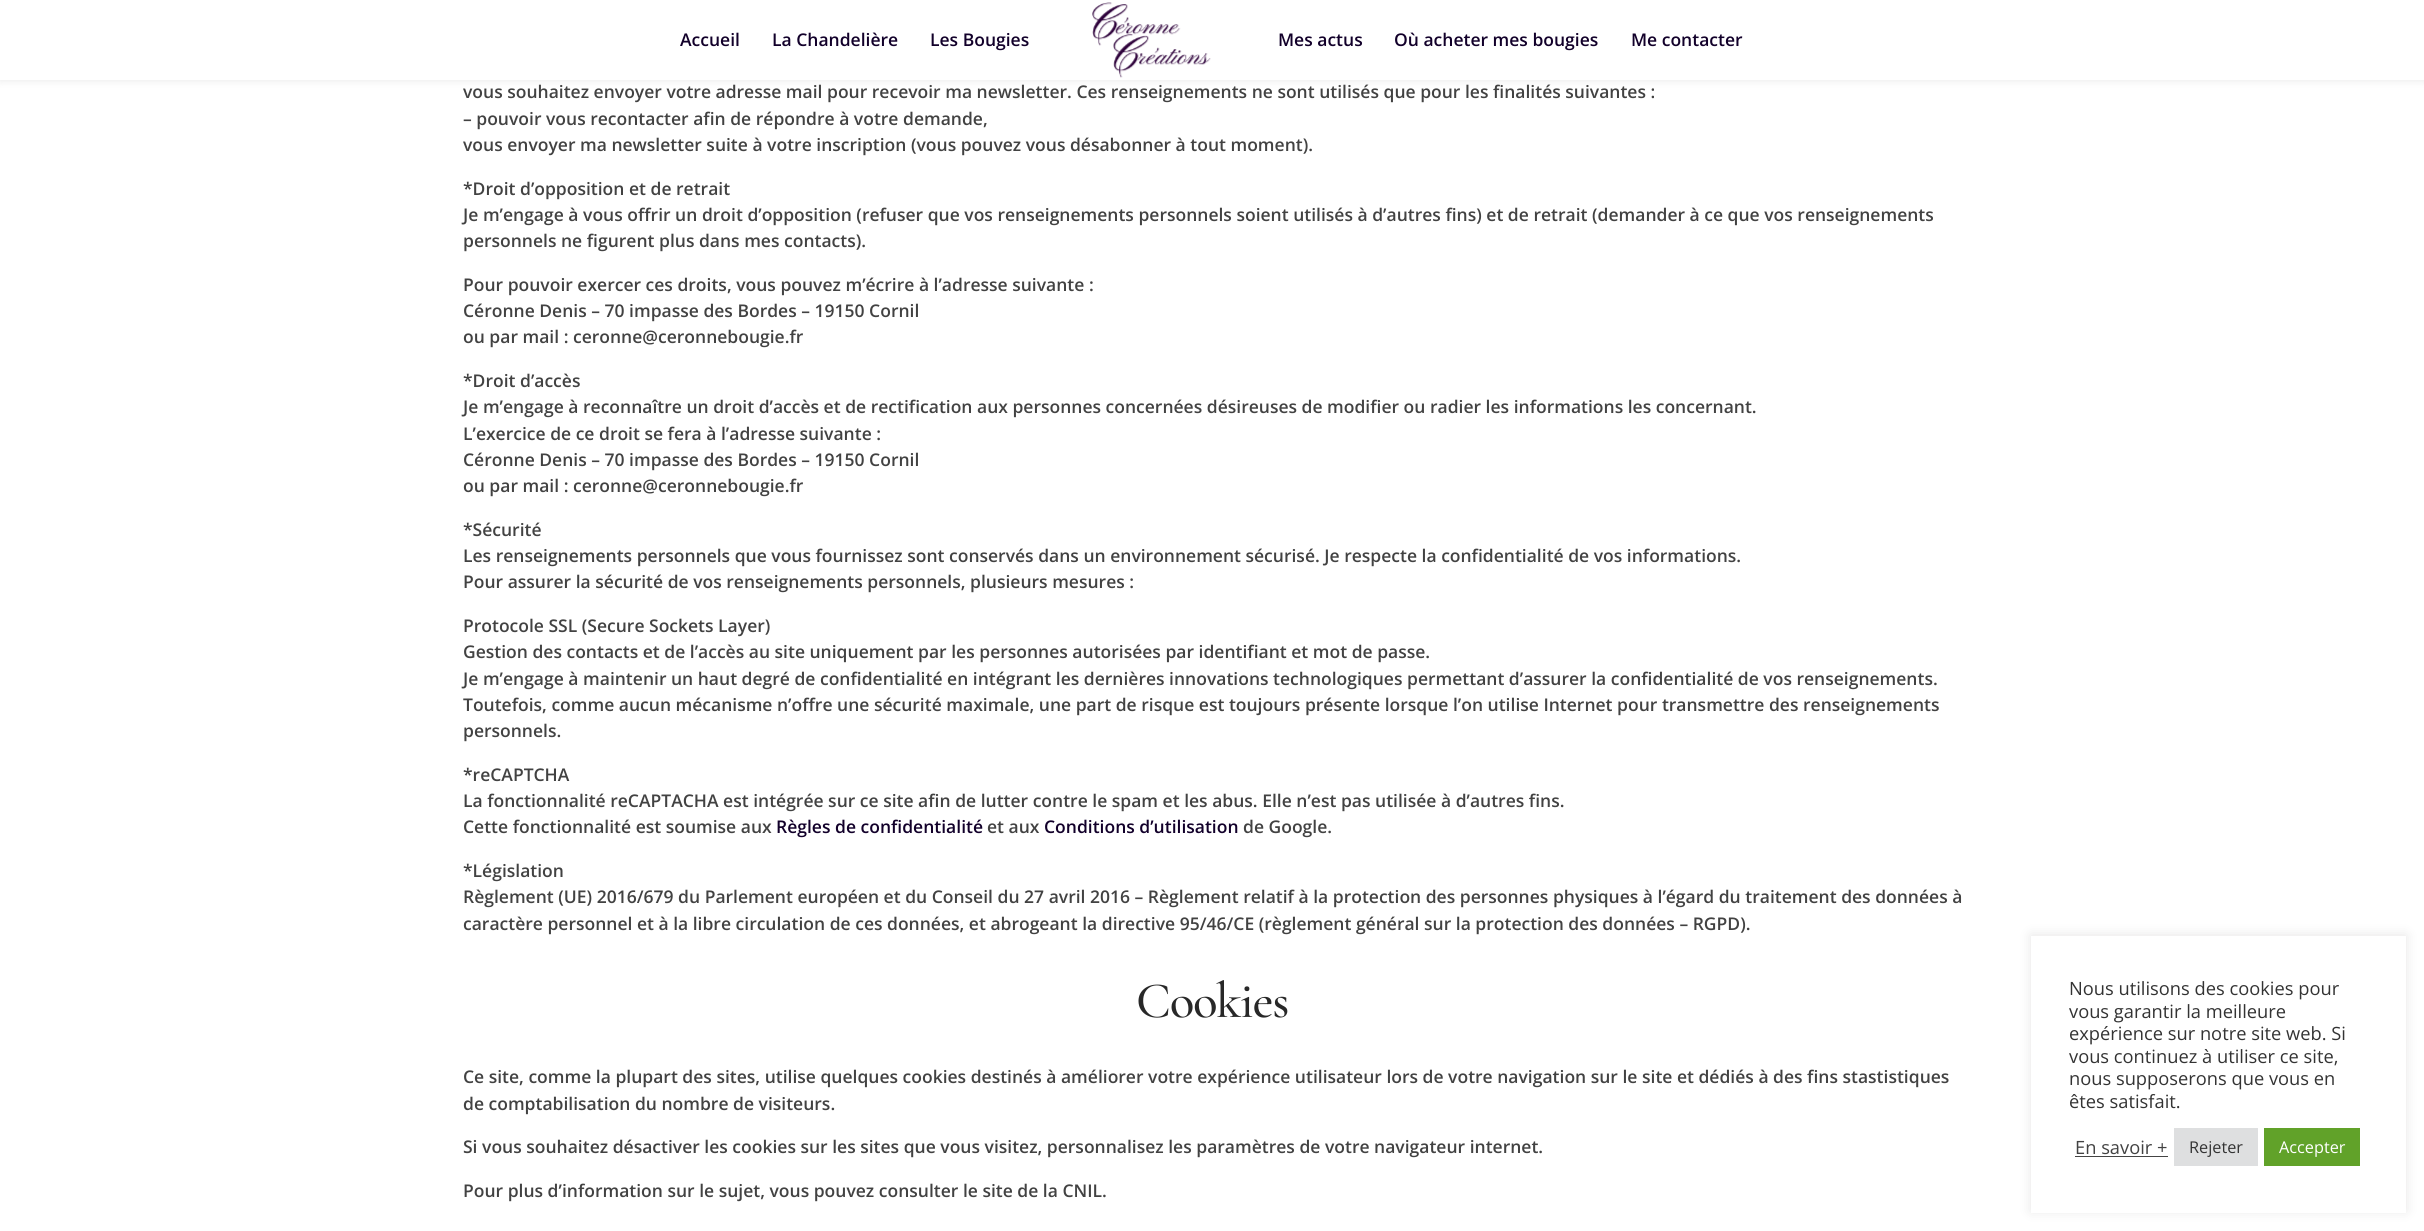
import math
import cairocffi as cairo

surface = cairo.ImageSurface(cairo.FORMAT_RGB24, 2424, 1231)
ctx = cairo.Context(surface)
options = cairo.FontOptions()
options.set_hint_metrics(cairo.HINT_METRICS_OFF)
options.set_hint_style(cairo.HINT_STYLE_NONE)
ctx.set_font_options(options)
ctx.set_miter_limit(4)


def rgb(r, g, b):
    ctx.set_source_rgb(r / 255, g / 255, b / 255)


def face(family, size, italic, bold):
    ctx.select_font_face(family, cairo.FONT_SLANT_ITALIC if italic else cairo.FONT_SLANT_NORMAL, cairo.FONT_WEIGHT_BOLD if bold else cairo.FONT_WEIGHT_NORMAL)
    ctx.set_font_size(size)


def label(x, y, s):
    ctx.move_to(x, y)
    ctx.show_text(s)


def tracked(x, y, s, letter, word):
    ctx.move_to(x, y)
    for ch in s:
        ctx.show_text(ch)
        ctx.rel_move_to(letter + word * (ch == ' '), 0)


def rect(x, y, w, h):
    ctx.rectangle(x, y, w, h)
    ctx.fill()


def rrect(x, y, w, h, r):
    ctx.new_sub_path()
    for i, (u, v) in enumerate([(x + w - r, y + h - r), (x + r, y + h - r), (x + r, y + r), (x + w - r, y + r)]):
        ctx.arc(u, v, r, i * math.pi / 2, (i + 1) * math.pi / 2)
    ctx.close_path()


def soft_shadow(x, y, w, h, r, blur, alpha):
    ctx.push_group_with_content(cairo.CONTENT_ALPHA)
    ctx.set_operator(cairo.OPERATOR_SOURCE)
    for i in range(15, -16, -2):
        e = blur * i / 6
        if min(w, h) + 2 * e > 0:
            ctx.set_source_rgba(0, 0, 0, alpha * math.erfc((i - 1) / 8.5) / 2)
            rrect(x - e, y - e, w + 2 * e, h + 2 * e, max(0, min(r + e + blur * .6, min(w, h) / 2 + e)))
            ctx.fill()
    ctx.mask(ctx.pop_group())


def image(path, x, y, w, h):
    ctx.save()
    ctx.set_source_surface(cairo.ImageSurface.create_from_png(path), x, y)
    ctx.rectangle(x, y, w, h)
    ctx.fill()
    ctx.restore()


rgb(255, 255, 255)
ctx.paint()
rgb(0, 0, 0)
soft_shadow(0, 0, 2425, 80, 0, 4.5, 0.1)
rgb(255, 255, 255)
rect(0, 0, 2424, 80)
face('Open Sans SemiBold', 17.5, 0, 0)
rgb(18, 0, 42)
label(680, 46, 'Accueil')
label(772, 46, 'La Chandelière')
label(930, 46, 'Les Bougies')
image('image0.png', 1092, 2, 119, 76)
label(1278, 46, 'Mes actus')
label(1394, 46, 'Où acheter mes bougies')
label(1631, 46, 'Me contacter')
rgb(66, 66, 66)
label(463, 98, 'vous souhaitez envoyer votre adresse mail pour recevoir ma newsletter. Ces renseignements ne sont utilisés que pour les finalités suivantes :')
label(463, 125, '– pouvoir vous recontacter afin de répondre à votre demande,')
label(463, 151, 'vous envoyer ma newsletter suite à votre inscription (vous pouvez vous désabonner à tout moment).')
label(463, 195, '*Droit d’opposition et de retrait')
label(463, 221, 'Je m’engage à vous offrir un droit d’opposition (refuser que vos renseignements personnels soient utilisés à d’autres fins) et de retrait (demander à ce que vos renseignements')
label(463, 247, 'personnels ne figurent plus dans mes contacts).')
label(463, 291, 'Pour pouvoir exercer ces droits, vous pouvez m’écrire à l’adresse suivante :')
label(463, 317, 'Céronne Denis – 70 impasse des Bordes – 19150 Cornil')
label(463, 343, 'ou par mail : ceronne@ceronnebougie.fr')
label(463, 387, '*Droit d’accès')
label(463, 413, 'Je m’engage à reconnaître un droit d’accès et de rectification aux personnes concernées désireuses de modifier ou radier les informations les concernant.')
label(463, 440, 'L’exercice de ce droit se fera à l’adresse suivante :')
label(463, 466, 'Céronne Denis – 70 impasse des Bordes – 19150 Cornil')
label(463, 492, 'ou par mail : ceronne@ceronnebougie.fr')
label(463, 536, '*Sécurité')
label(463, 562, 'Les renseignements personnels que vous fournissez sont conservés dans un environnement sécurisé. Je respecte la confidentialité de vos informations.')
label(463, 588, 'Pour assurer la sécurité de vos renseignements personnels, plusieurs mesures :')
label(463, 632, 'Protocole SSL (Secure Sockets Layer)')
label(463, 658, 'Gestion des contacts et de l’accès au site uniquement par les personnes autorisées par identifiant et mot de passe.')
label(463, 685, 'Je m’engage à maintenir un haut degré de confidentialité en intégrant les dernières innovations technologiques permettant d’assurer la confidentialité de vos renseignements.')
label(463, 711, 'Toutefois, comme aucun mécanisme n’offre une sécurité maximale, une part de risque est toujours présente lorsque l’on utilise Internet pour transmettre des renseignements')
label(463, 737, 'personnels.')
label(463, 781, '*reCAPTCHA')
label(463, 807, 'La fonctionnalité reCAPTACHA est intégrée sur ce site afin de lutter contre le spam et les abus. Elle n’est pas utilisée à d’autres fins.')
label(463, 833, 'Cette fonctionnalité est soumise aux')
rgb(18, 0, 42)
label(776, 833, 'Règles de confidentialité')
rgb(66, 66, 66)
label(987, 833, 'et aux')
rgb(18, 0, 42)
label(1044, 833, 'Conditions d’utilisation')
rgb(66, 66, 66)
label(1243, 833, 'de Google.')
label(463, 877, '*Législation')
label(463, 903, 'Règlement (UE) 2016/679 du Parlement européen et du Conseil du 27 avril 2016 – Règlement relatif à la protection des personnes physiques à l’égard du traitement des données à')
label(463, 930, 'caractère personnel et à la libre circulation de ces données, et abrogeant la directive 95/46/CE (règlement général sur la protection des données – RGPD).')
face('Cormorant Garamond Light', 51, 0, 0)
rgb(40, 40, 40)
tracked(1136, 1017, 'Cookies', -1.25, 0)
face('Open Sans SemiBold', 17.5, 0, 0)
rgb(66, 66, 66)
label(463, 1083, 'Ce site, comme la plupart des sites, utilise quelques cookies destinés à améliorer votre expérience utilisateur lors de votre navigation sur le site et dédiés à des fins stastistiques')
label(463, 1110, 'de comptabilisation du nombre de visiteurs.')
label(463, 1153, 'Si vous souhaitez désactiver les cookies sur les sites que vous visitez, personnalisez les paramètres de votre navigateur internet.')
label(463, 1197, 'Pour plus d’information sur le sujet, vous pouvez consulter le site de la CNIL.')
rgb(172, 171, 171)
soft_shadow(2031, 935, 375, 276, 0, 6, 0.3)
rgb(255, 255, 255)
rect(2031, 936, 375, 277)
face('Open Sans', 18.3, 0, 0)
rgb(51, 51, 51)
label(2069, 995, 'Nous utilisons des cookies pour')
label(2069, 1018, 'vous garantir la meilleure')
label(2069, 1040, 'expérience sur notre site web. Si')
label(2069, 1063, 'vous continuez à utiliser ce site,')
label(2069, 1085, 'nous supposerons que vous en')
label(2069, 1108, 'êtes satisfait.')
rgb(66, 66, 66)
label(2075, 1154, 'En savoir +')
rgb(68, 68, 68)
rect(2075, 1156, 93, 1)
rgb(222, 223, 224)
rect(2174, 1128, 84, 38)
face('Open Sans', 16.25, 0, 0)
rgb(51, 51, 51)
label(2189, 1153, 'Rejeter')
rgb(97, 162, 41)
rect(2264, 1128, 96, 38)
rgb(255, 255, 255)
label(2279, 1153, 'Accepter')
surface.write_to_png('render.png')
